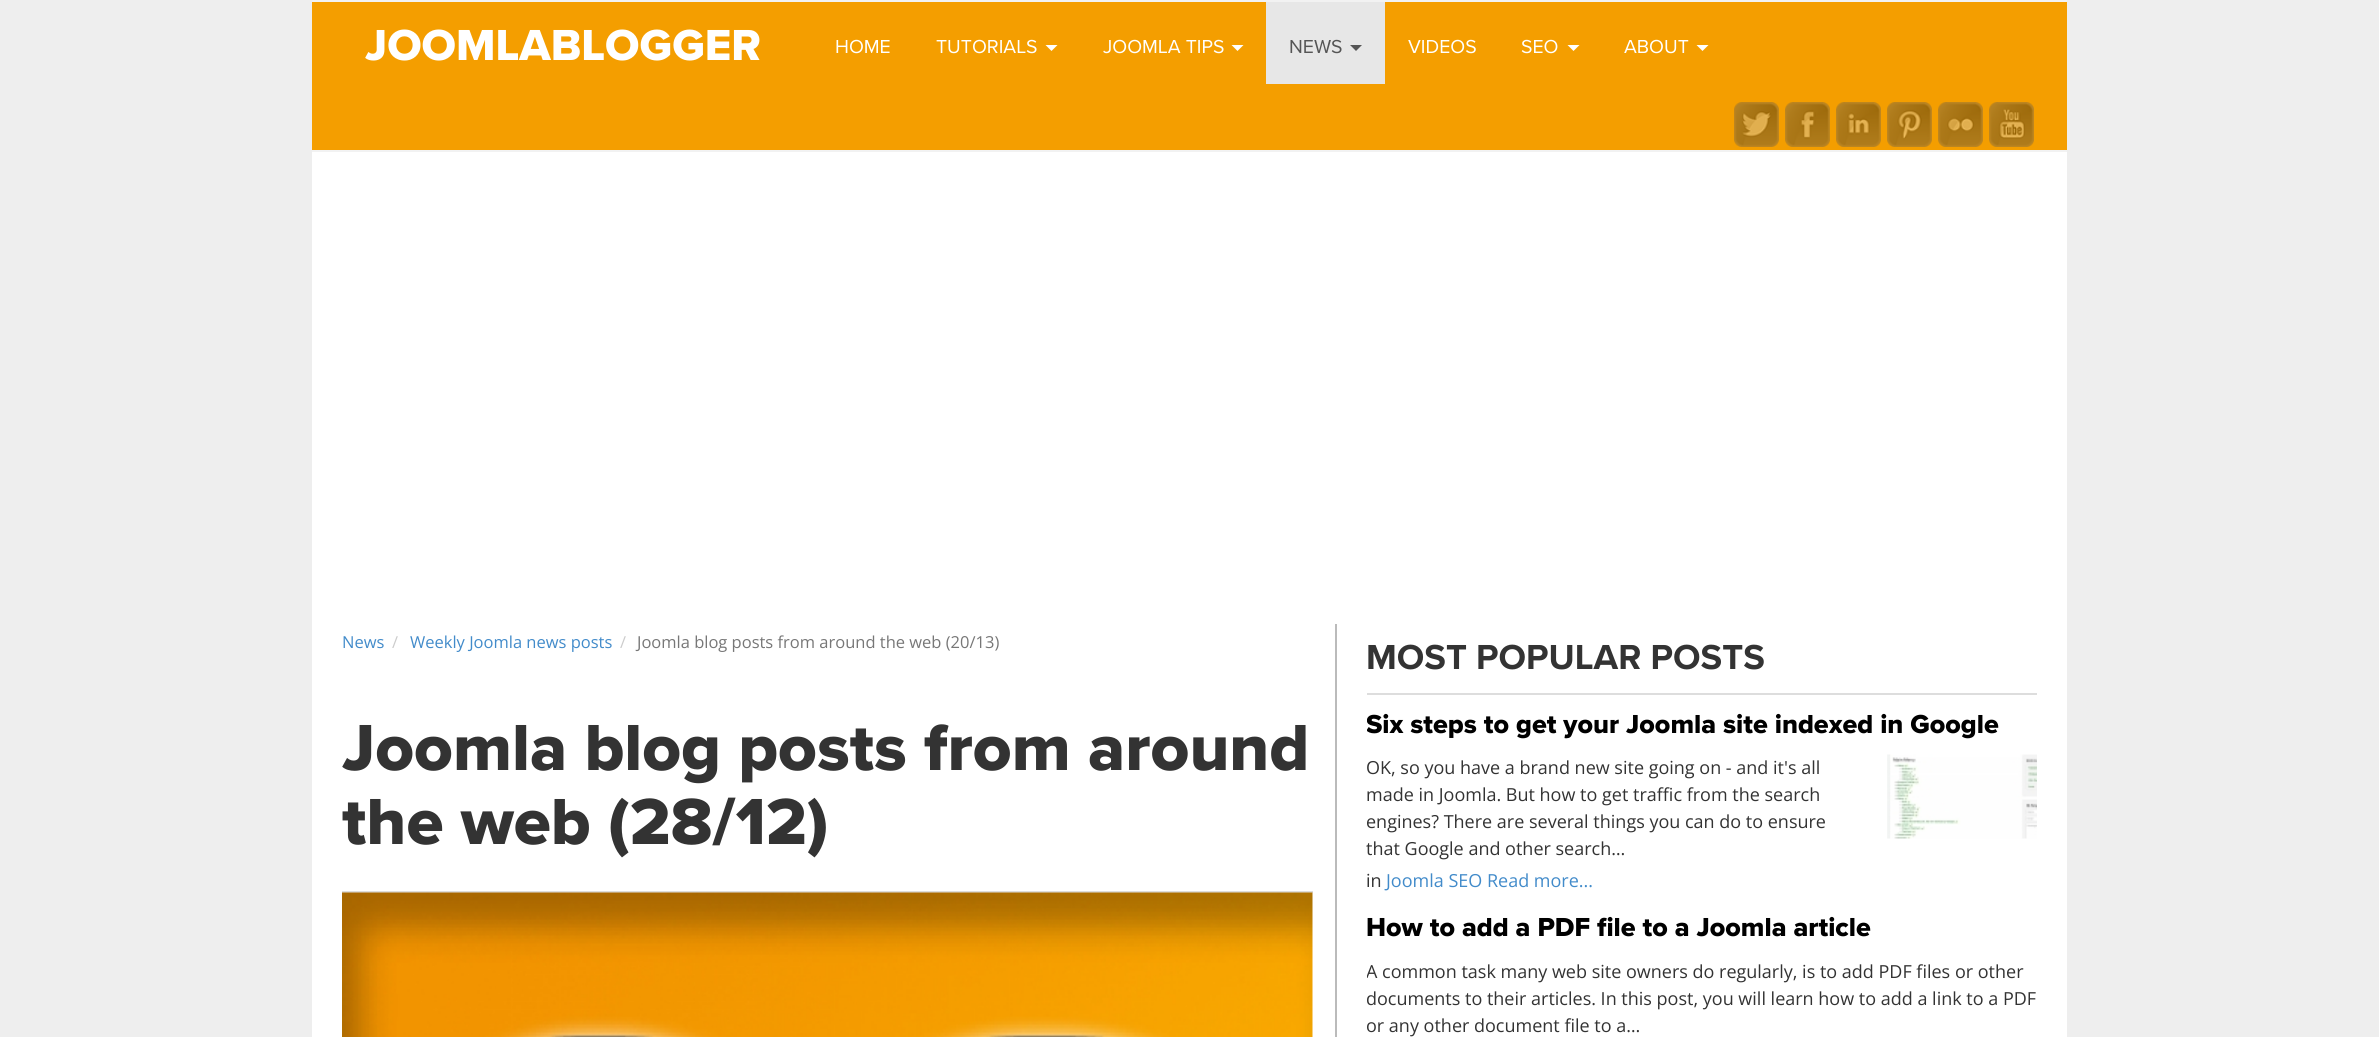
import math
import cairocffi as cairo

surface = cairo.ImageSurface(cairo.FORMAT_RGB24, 2379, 1037)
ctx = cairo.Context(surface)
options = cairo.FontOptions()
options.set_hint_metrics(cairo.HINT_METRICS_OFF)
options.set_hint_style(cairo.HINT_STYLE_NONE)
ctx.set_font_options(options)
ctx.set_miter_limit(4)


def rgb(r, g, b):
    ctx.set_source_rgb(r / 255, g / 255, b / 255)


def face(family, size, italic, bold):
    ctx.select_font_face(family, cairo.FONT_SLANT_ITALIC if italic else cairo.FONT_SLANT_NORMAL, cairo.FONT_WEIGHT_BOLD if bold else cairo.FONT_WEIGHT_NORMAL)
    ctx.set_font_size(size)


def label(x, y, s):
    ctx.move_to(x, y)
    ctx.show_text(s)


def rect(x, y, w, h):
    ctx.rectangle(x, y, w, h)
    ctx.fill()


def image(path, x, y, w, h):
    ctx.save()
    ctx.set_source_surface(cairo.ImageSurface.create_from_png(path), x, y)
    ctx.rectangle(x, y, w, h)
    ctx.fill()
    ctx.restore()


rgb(238, 238, 238)
ctx.paint()
rgb(242, 242, 242)
rect(312, 0, 1755, 2)
rect(312, 150, 1755, 2)
rgb(244, 158, 0)
rect(312, 2, 1755, 148)
face('Proxima Nova ExtraBold', 45, 0, 0)
rgb(255, 255, 255)
label(365, 60, 'JOOMLABLOGGER')
face('Proxima Nova', 19.5, 0, 0)
label(835, 53, 'HOME')
label(936, 53, 'TUTORIALS')
ctx.new_path()
ctx.move_to(1045.5, 45)
ctx.line_to(1057.5, 45)
ctx.line_to(1051.5, 51)
ctx.close_path()
ctx.fill()
label(1103, 53, 'JOOMLA TIPS')
ctx.new_path()
ctx.move_to(1231.5, 45)
ctx.line_to(1243.5, 45)
ctx.line_to(1237.5, 51)
ctx.close_path()
ctx.fill()
rgb(231, 231, 231)
rect(1266, 2, 119, 82)
rgb(85, 85, 85)
label(1289, 53, 'NEWS')
ctx.new_path()
ctx.move_to(1350, 45)
ctx.line_to(1362, 45)
ctx.line_to(1356, 51)
ctx.close_path()
ctx.fill()
rgb(255, 255, 255)
label(1408, 53, 'VIDEOS')
label(1521, 53, 'SEO')
ctx.new_path()
ctx.move_to(1567.5, 45)
ctx.line_to(1579.5, 45)
ctx.line_to(1573.5, 51)
ctx.close_path()
ctx.fill()
label(1624, 53, 'ABOUT')
ctx.new_path()
ctx.move_to(1696.5, 45)
ctx.line_to(1708.5, 45)
ctx.line_to(1702.5, 51)
ctx.close_path()
ctx.fill()
image('image0.png', 1734, 102, 45, 45)
image('image1.png', 1785, 102, 45, 45)
image('image2.png', 1836, 102, 45, 45)
image('image3.png', 1887, 102, 45, 45)
image('image4.png', 1938, 102, 45, 45)
image('image5.png', 1989, 102, 45, 45)
rect(312, 152, 1755, 885)
face('Open Sans', 16.5, 0, 0)
rgb(66, 139, 202)
label(342, 648, 'News')
rgb(204, 204, 204)
label(392, 648, '/')
rgb(66, 139, 202)
label(410, 648, 'Weekly Joomla news posts')
rgb(204, 204, 204)
label(620, 648, '/')
rgb(119, 119, 119)
label(637, 648, 'Joomla blog posts from around the web (20/13)')
face('Proxima Nova ExtraBold', 67.5, 0, 0)
rgb(51, 51, 51)
label(342, 770, 'Joomla blog posts from around')
label(342, 844, 'the web (28/12)')
rgb(221, 221, 221)
rect(342, 891, 971, 2)
image('image6.png', 342, 892, 971, 145)
rgb(187, 187, 187)
rect(1335, 624, 2, 413)
rgb(221, 221, 221)
rect(1367, 693, 670, 2)
face('Proxima Nova', 36, 0, 1)
rgb(51, 51, 51)
label(1366, 669, 'MOST POPULAR POSTS')
ctx.save()
ctx.rectangle(1367, 710, 670, 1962)
ctx.clip()
face('Proxima Nova ExtraBold', 27, 0, 0)
rgb(0, 0, 0)
label(1366, 733, 'Six steps to get your Joomla site indexed in Google')
ctx.restore()
face('Open Sans', 18, 0, 0)
label(1366, 774, 'OK, so you have a brand new site going on - and it\'s all')
image('image7.png', 1887, 754, 150, 85)
label(1366, 801, 'made in Joomla. But how to get traffic from the search')
label(1366, 828, 'engines? There are several things you can do to ensure')
label(1366, 855, 'that Google and other search…')
label(1366, 887, 'in')
rgb(66, 139, 202)
label(1386, 887, 'Joomla SEO Read more...')
face('Proxima Nova ExtraBold', 27, 0, 0)
rgb(0, 0, 0)
label(1366, 936, 'How to add a PDF file to a Joomla article')
ctx.save()
ctx.rectangle(1367, 710, 670, 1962)
ctx.clip()
face('Open Sans', 18, 0, 0)
rgb(51, 51, 51)
label(1366, 978, 'A common task many web site owners do regularly, is to add PDF files or other')
ctx.restore()
face('Open Sans', 18, 0, 0)
rgb(51, 51, 51)
label(1366, 1005, 'documents to their articles. In this post, you will learn how to add a link to a PDF')
label(1366, 1032, 'or any other document file to a…')
surface.write_to_png('render.png')
